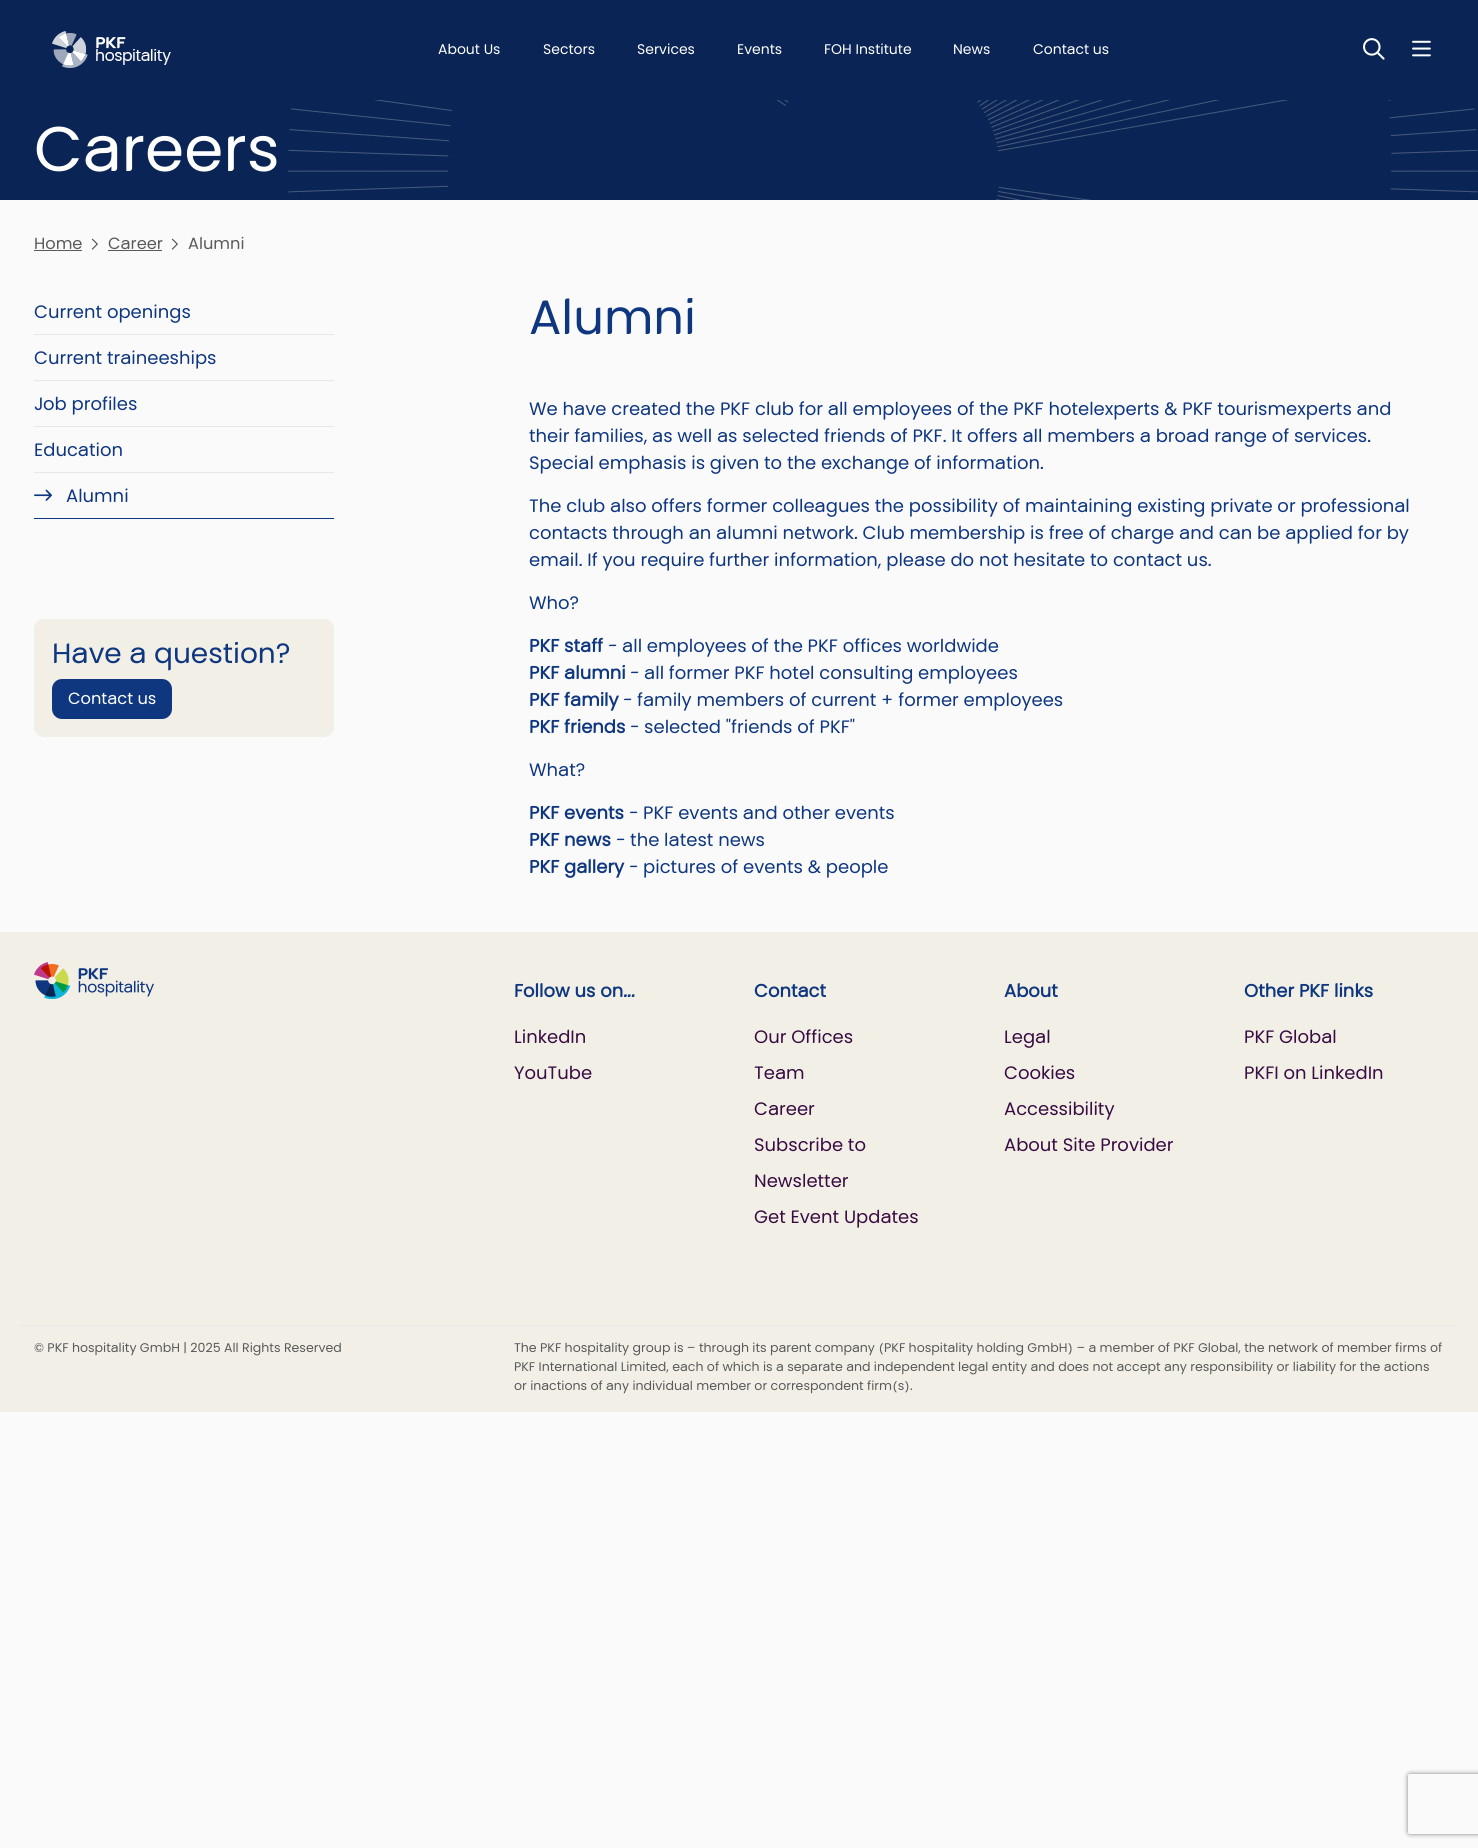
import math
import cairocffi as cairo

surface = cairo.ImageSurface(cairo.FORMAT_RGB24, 1478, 1848)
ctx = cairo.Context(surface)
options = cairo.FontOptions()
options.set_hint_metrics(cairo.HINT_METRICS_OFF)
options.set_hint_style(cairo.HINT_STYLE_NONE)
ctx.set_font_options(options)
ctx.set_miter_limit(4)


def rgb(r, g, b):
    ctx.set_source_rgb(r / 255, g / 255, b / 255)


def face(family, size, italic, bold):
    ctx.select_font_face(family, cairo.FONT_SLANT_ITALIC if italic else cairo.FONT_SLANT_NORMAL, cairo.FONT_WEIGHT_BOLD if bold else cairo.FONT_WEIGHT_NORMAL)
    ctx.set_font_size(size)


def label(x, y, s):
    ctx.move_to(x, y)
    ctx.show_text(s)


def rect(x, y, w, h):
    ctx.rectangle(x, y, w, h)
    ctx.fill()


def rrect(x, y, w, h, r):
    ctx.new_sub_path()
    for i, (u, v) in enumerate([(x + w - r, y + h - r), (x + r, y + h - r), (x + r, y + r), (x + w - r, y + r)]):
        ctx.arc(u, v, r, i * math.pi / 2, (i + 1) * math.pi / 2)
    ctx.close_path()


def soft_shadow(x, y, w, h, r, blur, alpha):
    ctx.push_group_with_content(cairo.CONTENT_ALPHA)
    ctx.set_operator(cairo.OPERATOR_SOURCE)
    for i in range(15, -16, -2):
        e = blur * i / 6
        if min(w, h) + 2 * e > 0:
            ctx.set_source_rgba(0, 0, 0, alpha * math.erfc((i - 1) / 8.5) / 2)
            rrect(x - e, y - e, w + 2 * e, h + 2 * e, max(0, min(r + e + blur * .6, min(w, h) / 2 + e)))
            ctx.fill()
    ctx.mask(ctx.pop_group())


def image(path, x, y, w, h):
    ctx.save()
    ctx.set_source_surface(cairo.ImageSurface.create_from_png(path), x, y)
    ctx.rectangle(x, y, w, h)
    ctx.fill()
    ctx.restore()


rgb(250, 250, 250)
ctx.paint()
rgb(10, 37, 85)
rect(0, 0, 1478, 200)
image('image0.png', 52, 31, 119, 37)
face('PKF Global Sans', 14, 0, 0)
rgb(255, 255, 255)
label(438, 54, 'About Us')
label(543, 54, 'Sectors')
label(637, 54, 'Services')
label(737, 54, 'Events')
label(824, 54, 'FOH Institute')
label(953, 54, 'News')
label(1033, 54, 'Contact us')
image('image1.png', 1363, 38, 22, 22)
image('image2.png', 1412, 40, 19, 17)
image('image3.png', 288, 100, 1190, 100)
face('PKF Global Sans', 63, 0, 0)
label(34, 171, 'Careers')
face('PKF Global Sans', 16.25, 0, 0)
rgb(90, 90, 90)
label(34, 249, 'Home')
rect(34, 250, 48, 1)
image('image4.png', 91, 238, 7, 12)
label(108, 249, 'Career')
rect(108, 250, 54, 1)
image('image4.png', 171, 238, 7, 12)
label(188, 249, 'Alumni')
rgb(232, 232, 232)
rect(34, 334, 300, 1)
face('PKF Global Sans', 18, 0, 0)
rgb(15, 55, 128)
label(34, 318, 'Current openings')
rgb(232, 232, 232)
rect(34, 380, 300, 1)
rgb(15, 55, 128)
label(34, 364, 'Current traineeships')
rgb(232, 232, 232)
rect(34, 426, 300, 1)
rgb(15, 55, 128)
label(34, 410, 'Job profiles')
rgb(232, 232, 232)
rect(34, 472, 300, 1)
rgb(15, 55, 128)
label(34, 456, 'Education')
rect(34, 518, 300, 1)
image('image5.png', 34, 489, 18, 12)
label(66, 502, 'Alumni')
rgb(242, 239, 231)
rrect(34, 619, 300, 118, 10)
ctx.fill()
face('PKF Global Sans', 28, 0, 0)
rgb(15, 55, 128)
label(52, 663, 'Have a question?')
rrect(52, 679, 120, 40, 10)
ctx.fill()
face('PKF Global Sans', 16.25, 0, 0)
rgb(255, 255, 255)
label(68, 704, 'Contact us')
face('PKF Global Sans', 48, 0, 0)
rgb(15, 55, 128)
label(529, 334, 'Alumni')
face('PKF Global Sans', 18, 0, 0)
label(529, 415, 'We have created the PKF club for all employees of the PKF hotelexperts & PKF tourismexperts and')
label(529, 442, 'their families, as well as selected friends of PKF. It offers all members a broad range of services.')
label(529, 469, 'Special emphasis is given to the exchange of information.')
label(529, 512, 'The club also offers former colleagues the possibility of maintaining existing private or professional')
label(529, 539, 'contacts through an alumni network. Club membership is free of charge and can be applied for by')
label(529, 566, 'email. If you require further information, please do not hesitate to contact us.')
label(529, 609, 'Who?')
face('PKF Global Sans', 18, 0, 1)
label(529, 652, 'PKF staff')
face('PKF Global Sans', 18, 0, 0)
label(608, 652, '- all employees of the PKF offices worldwide')
face('PKF Global Sans', 18, 0, 1)
label(529, 679, 'PKF alumni')
face('PKF Global Sans', 18, 0, 0)
label(630, 679, '- all former PKF hotel consulting employees')
face('PKF Global Sans', 18, 0, 1)
label(529, 706, 'PKF family')
face('PKF Global Sans', 18, 0, 0)
label(623, 706, '- family members of current + former employees')
face('PKF Global Sans', 18, 0, 1)
label(529, 733, 'PKF friends')
face('PKF Global Sans', 18, 0, 0)
label(630, 733, '- selected "friends of PKF"')
label(529, 776, 'What?')
face('PKF Global Sans', 18, 0, 1)
label(529, 819, 'PKF events')
face('PKF Global Sans', 18, 0, 0)
label(629, 819, '- PKF events and other events')
face('PKF Global Sans', 18, 0, 1)
label(529, 846, 'PKF news')
face('PKF Global Sans', 18, 0, 0)
label(616, 846, '- the latest news')
face('PKF Global Sans', 18, 0, 1)
label(529, 873, 'PKF gallery')
face('PKF Global Sans', 18, 0, 0)
label(629, 873, '- pictures of events & people')
rgb(242, 239, 231)
rect(0, 932, 1478, 480)
image('image6.png', 34, 962, 120, 37)
face('PKF Global Sans', 18, 0, 1)
rgb(15, 55, 128)
label(514, 997, 'Follow us on...')
face('PKF Global Sans', 18, 0, 0)
rgb(57, 12, 66)
label(514, 1043, 'LinkedIn')
label(514, 1079, 'YouTube')
face('PKF Global Sans', 18, 0, 1)
rgb(15, 55, 128)
label(754, 997, 'Contact')
face('PKF Global Sans', 18, 0, 0)
rgb(57, 12, 66)
label(754, 1043, 'Our Offices')
label(754, 1079, 'Team')
label(754, 1115, 'Career')
label(754, 1151, 'Subscribe to')
label(754, 1187, 'Newsletter')
label(754, 1223, 'Get Event Updates')
face('PKF Global Sans', 18, 0, 1)
rgb(15, 55, 128)
label(1004, 997, 'About')
face('PKF Global Sans', 18, 0, 0)
rgb(57, 12, 66)
label(1004, 1043, 'Legal')
label(1004, 1079, 'Cookies')
label(1004, 1115, 'Accessibility')
label(1004, 1151, 'About Site Provider')
face('PKF Global Sans', 18, 0, 1)
rgb(15, 55, 128)
label(1244, 997, 'Other PKF links')
face('PKF Global Sans', 18, 0, 0)
rgb(57, 12, 66)
label(1244, 1043, 'PKF Global')
label(1244, 1079, 'PKFI on LinkedIn')
rgb(232, 232, 232)
rect(19, 1325, 1440, 1)
face('PKF Global Sans', 12.6, 0, 0)
rgb(90, 90, 90)
label(34, 1352, '© PKF hospitality GmbH | 2025 All Rights Reserved')
label(514, 1352, 'The PKF hospitality group is – through its parent company (PKF hospitality holding GmbH) – a member of PKF Global, the network of member firms of')
label(514, 1371, 'PKF International Limited, each of which is a separate and independent legal entity and does not accept any responsibility or liability for the actions')
label(514, 1390, 'or inactions of any individual member or correspondent firm(s).')
ctx.save()
ctx.set_fill_rule(cairo.FILL_RULE_EVEN_ODD)
ctx.new_path()
ctx.move_to(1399, 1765)
ctx.line_to(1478, 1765)
ctx.line_to(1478, 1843)
ctx.line_to(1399, 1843)
ctx.close_path()
ctx.move_to(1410, 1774)
ctx.line_to(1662, 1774)
ctx.curve_to(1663, 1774, 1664, 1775, 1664, 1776)
ctx.line_to(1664, 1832)
ctx.curve_to(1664, 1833, 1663, 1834, 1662, 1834)
ctx.line_to(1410, 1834)
ctx.curve_to(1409, 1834, 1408, 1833, 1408, 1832)
ctx.line_to(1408, 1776)
ctx.curve_to(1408, 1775, 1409, 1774, 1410, 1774)
ctx.close_path()
ctx.clip()
rgb(128, 128, 128)
soft_shadow(1408, 1774, 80, 60, 2, 2.5, 1)
ctx.restore()
surface.write_to_png('render.png')
